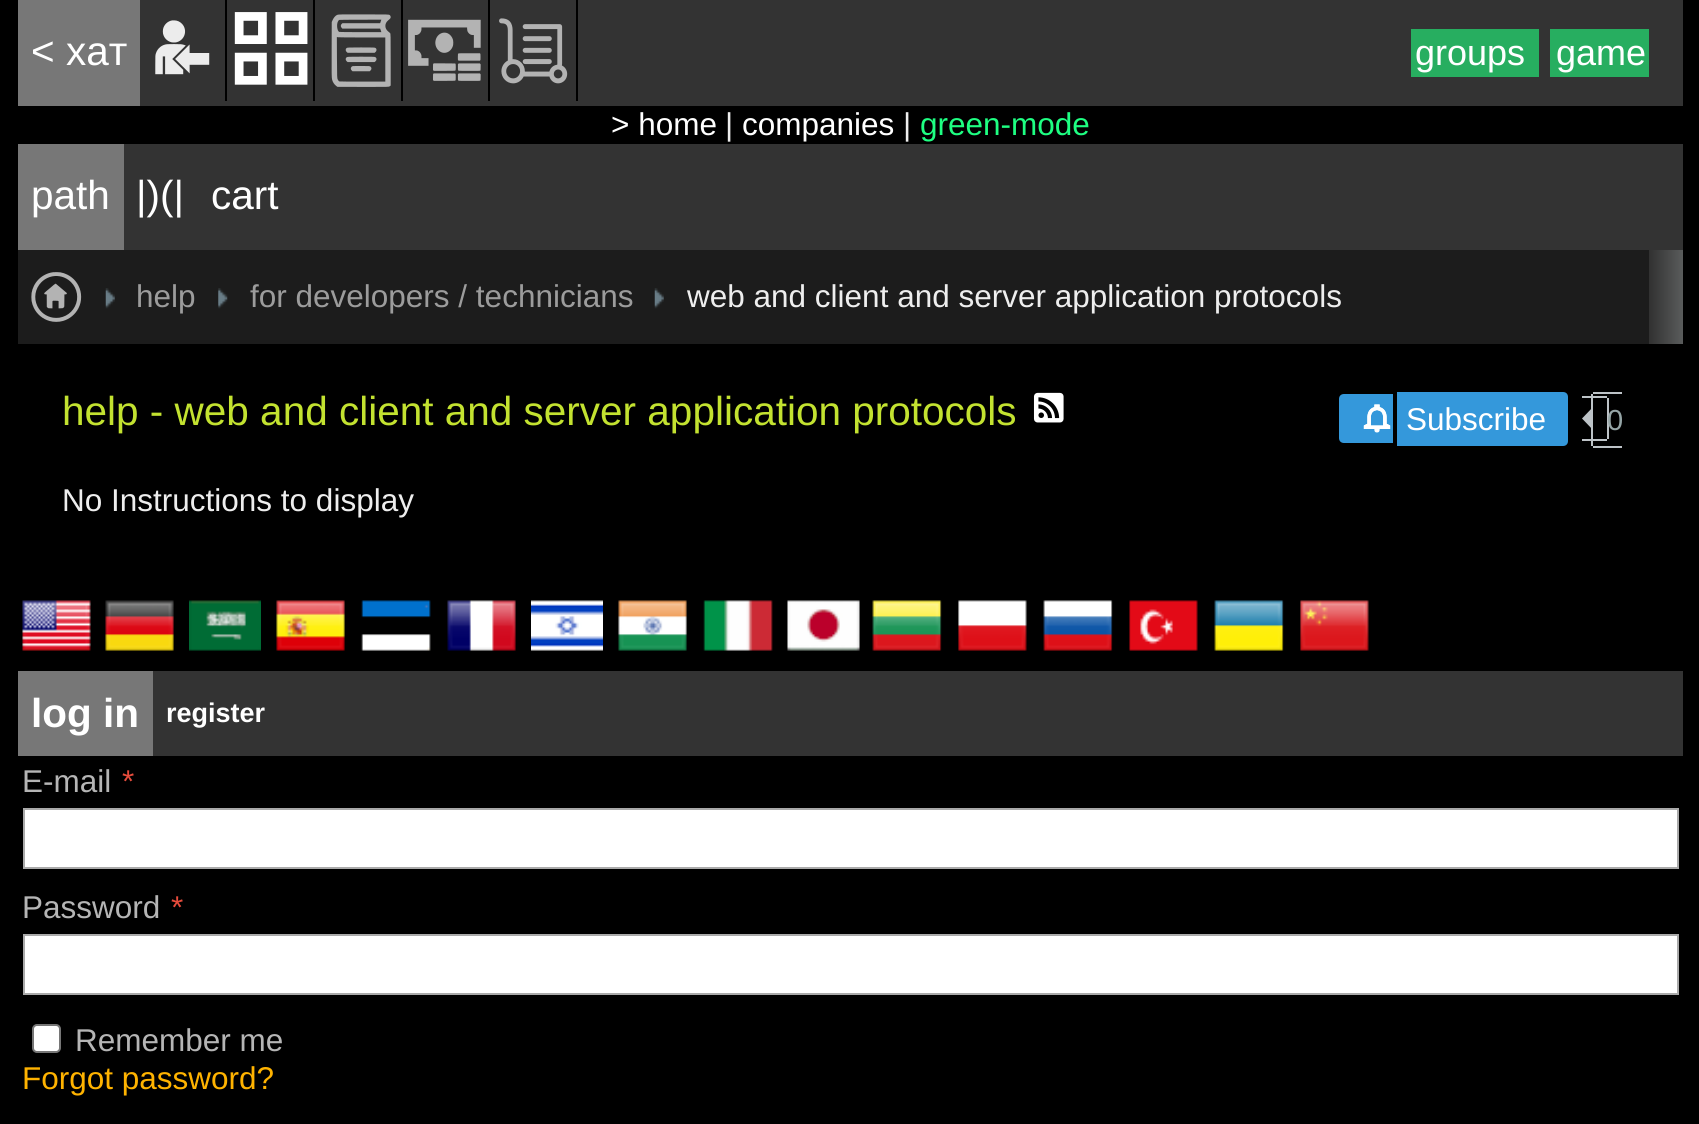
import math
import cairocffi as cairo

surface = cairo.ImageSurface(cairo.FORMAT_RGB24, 1699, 1124)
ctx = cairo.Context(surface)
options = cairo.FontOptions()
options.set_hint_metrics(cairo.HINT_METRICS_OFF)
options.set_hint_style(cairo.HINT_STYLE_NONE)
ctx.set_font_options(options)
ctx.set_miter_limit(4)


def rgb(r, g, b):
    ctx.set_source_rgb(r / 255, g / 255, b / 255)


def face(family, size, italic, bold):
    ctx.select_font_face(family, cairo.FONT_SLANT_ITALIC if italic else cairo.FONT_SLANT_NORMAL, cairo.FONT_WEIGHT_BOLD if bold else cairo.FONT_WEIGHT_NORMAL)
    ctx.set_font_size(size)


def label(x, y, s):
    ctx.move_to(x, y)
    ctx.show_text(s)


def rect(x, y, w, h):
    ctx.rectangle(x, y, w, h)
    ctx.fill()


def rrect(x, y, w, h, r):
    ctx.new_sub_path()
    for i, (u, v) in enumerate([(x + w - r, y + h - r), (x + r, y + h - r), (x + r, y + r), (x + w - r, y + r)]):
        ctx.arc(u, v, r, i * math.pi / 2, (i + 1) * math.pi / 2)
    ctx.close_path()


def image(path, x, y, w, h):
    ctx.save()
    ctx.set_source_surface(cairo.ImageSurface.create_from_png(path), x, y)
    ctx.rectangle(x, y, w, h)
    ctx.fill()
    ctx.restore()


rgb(0, 0, 0)
ctx.paint()
rgb(51, 51, 51)
rect(140, 0, 1543, 106)
rgb(119, 119, 119)
rect(18, 0, 122, 106)
face('Liberation Sans', 40.5, 0, 0)
rgb(255, 255, 255)
label(31, 65, '< xат')
image('image0.png', 155, 20, 55, 55)
rgb(0, 0, 0)
rect(225, 0, 2, 101)
image('image1.png', 234, 12, 74, 73)
rect(313, 0, 2, 101)
image('image2.png', 331, 14, 60, 73)
rect(401, 0, 2, 101)
image('image3.png', 408, 19, 73, 62)
rect(488, 0, 2, 101)
image('image4.png', 499, 18, 69, 66)
rect(576, 0, 2, 101)
rgb(39, 174, 96)
rect(1411, 29, 128, 48)
face('Liberation Sans', 36, 0, 0)
rgb(255, 255, 255)
label(1415, 65, 'groups')
rgb(39, 174, 96)
rect(1550, 29, 99, 48)
rgb(255, 255, 255)
label(1556, 65, 'game')
face('Liberation Sans', 31.5, 0, 0)
label(611, 135, '> home')
rgb(238, 238, 238)
label(725, 135, '|')
rgb(255, 255, 255)
label(742, 135, 'companies')
rgb(238, 238, 238)
label(903, 135, '|')
rgb(30, 255, 130)
label(920, 135, 'green-mode')
rgb(51, 51, 51)
rect(124, 144, 1559, 106)
rgb(119, 119, 119)
rect(18, 144, 106, 106)
face('Liberation Sans', 40.5, 0, 0)
rgb(255, 255, 255)
label(31, 209, 'path')
label(136, 209, '|)(|')
label(211, 209, 'cart')
rgb(28, 28, 28)
rect(18, 250, 1631, 94)
image('image5.png', 31, 272, 51, 50)
image('image6.png', 105, 288, 10, 21)
face('Liberation Sans', 31.5, 0, 0)
rgb(156, 156, 156)
label(136, 307, 'help')
image('image7.png', 218, 288, 10, 21)
label(250, 307, 'for developers / technicians')
image('image8.png', 654, 288, 10, 21)
rgb(238, 238, 238)
label(687, 307, 'web and client and server application protocols')
gradient = cairo.LinearGradient(1649, 297, 1683, 297)
gradient.add_color_stop_rgba(0, 0.192, 0.192, 0.192, 1)
gradient.add_color_stop_rgba(1, 0.353, 0.361, 0.361, 1)
ctx.set_source(gradient)
rect(1649, 250, 34, 94)
face('Liberation Sans', 40.5, 0, 0)
rgb(195, 226, 48)
label(62, 425, 'help - web and client and server application protocols')
image('image9.png', 1033, 392, 31, 31)
rgb(52, 152, 219)
ctx.new_path()
ctx.move_to(1344, 394)
ctx.line_to(1393, 394)
ctx.line_to(1393, 443)
ctx.line_to(1344, 443)
ctx.curve_to(1341, 443, 1339, 441, 1339, 438)
ctx.line_to(1339, 399)
ctx.curve_to(1339, 396, 1341, 394, 1344, 394)
ctx.close_path()
ctx.fill()
rect(1397, 392, 9, 54)
ctx.new_path()
ctx.move_to(1406, 392)
ctx.line_to(1563, 392)
ctx.curve_to(1566, 392, 1568, 394, 1568, 397)
ctx.line_to(1568, 441)
ctx.curve_to(1568, 444, 1566, 446, 1563, 446)
ctx.line_to(1406, 446)
ctx.close_path()
ctx.fill()
image('image10.png', 1363, 404, 28, 29)
face('Liberation Sans', 31.5, 0, 0)
rgb(255, 255, 255)
label(1406, 430, 'Subscribe')
rgb(189, 195, 199)
rect(1593, 392, 29, 2)
rect(1593, 446, 29, 2)
rect(1591, 394, 2, 52)
rect(1582, 396, 25, 2)
rect(1607, 398, 2, 41)
rect(1582, 439, 25, 2)
ctx.new_path()
ctx.move_to(1593, 407)
ctx.line_to(1593, 430)
ctx.line_to(1582, 418.5)
ctx.close_path()
ctx.fill()
face('Liberation Sans', 29, 0, 0)
rgb(149, 165, 166)
label(1607, 430, '0')
face('Liberation Sans', 31.5, 0, 0)
rgb(238, 238, 238)
label(62, 511, 'No Instructions to display')
image('image11.png', 22, 600, 69, 51)
image('image12.png', 105, 600, 69, 51)
image('image13.png', 189, 600, 72, 51)
image('image14.png', 276, 600, 69, 51)
image('image15.png', 361, 600, 70, 51)
image('image16.png', 447, 600, 69, 51)
image('image17.png', 531, 600, 72, 51)
image('image18.png', 618, 600, 69, 51)
image('image19.png', 703, 600, 70, 51)
image('image20.png', 787, 600, 73, 51)
image('image21.png', 872, 600, 70, 51)
image('image22.png', 958, 600, 69, 51)
image('image23.png', 1043, 600, 70, 51)
image('image24.png', 1129, 600, 69, 51)
image('image25.png', 1214, 600, 70, 51)
image('image26.png', 1300, 600, 69, 51)
rgb(51, 51, 51)
rect(153, 671, 1530, 85)
rgb(119, 119, 119)
rect(18, 671, 135, 85)
face('Liberation Sans', 40.5, 0, 1)
rgb(255, 255, 255)
label(31, 727, 'log in')
face('Liberation Sans', 27, 0, 1)
label(166, 722, 'register')
face('Liberation Sans', 31.5, 0, 0)
rgb(181, 181, 181)
label(22, 792, 'E-mail')
rgb(231, 76, 60)
label(122, 792, '*')
rgb(255, 255, 255)
ctx.rectangle(24, 809, 1654, 59)
ctx.fill_preserve()
rgb(170, 170, 170)
ctx.stroke()
rgb(181, 181, 181)
label(22, 918, 'Password')
rgb(231, 76, 60)
label(171, 918, '*')
rgb(255, 255, 255)
ctx.rectangle(24, 935, 1654, 59)
ctx.fill_preserve()
rgb(170, 170, 170)
ctx.stroke()
rgb(255, 255, 255)
rrect(33, 1025, 27, 27, 4)
ctx.fill_preserve()
rgb(118, 118, 118)
ctx.stroke()
rgb(181, 181, 181)
label(75, 1051, 'Remember me')
rgb(255, 179, 0)
label(22, 1089, 'Forgot password?')
surface.write_to_png('render.png')
